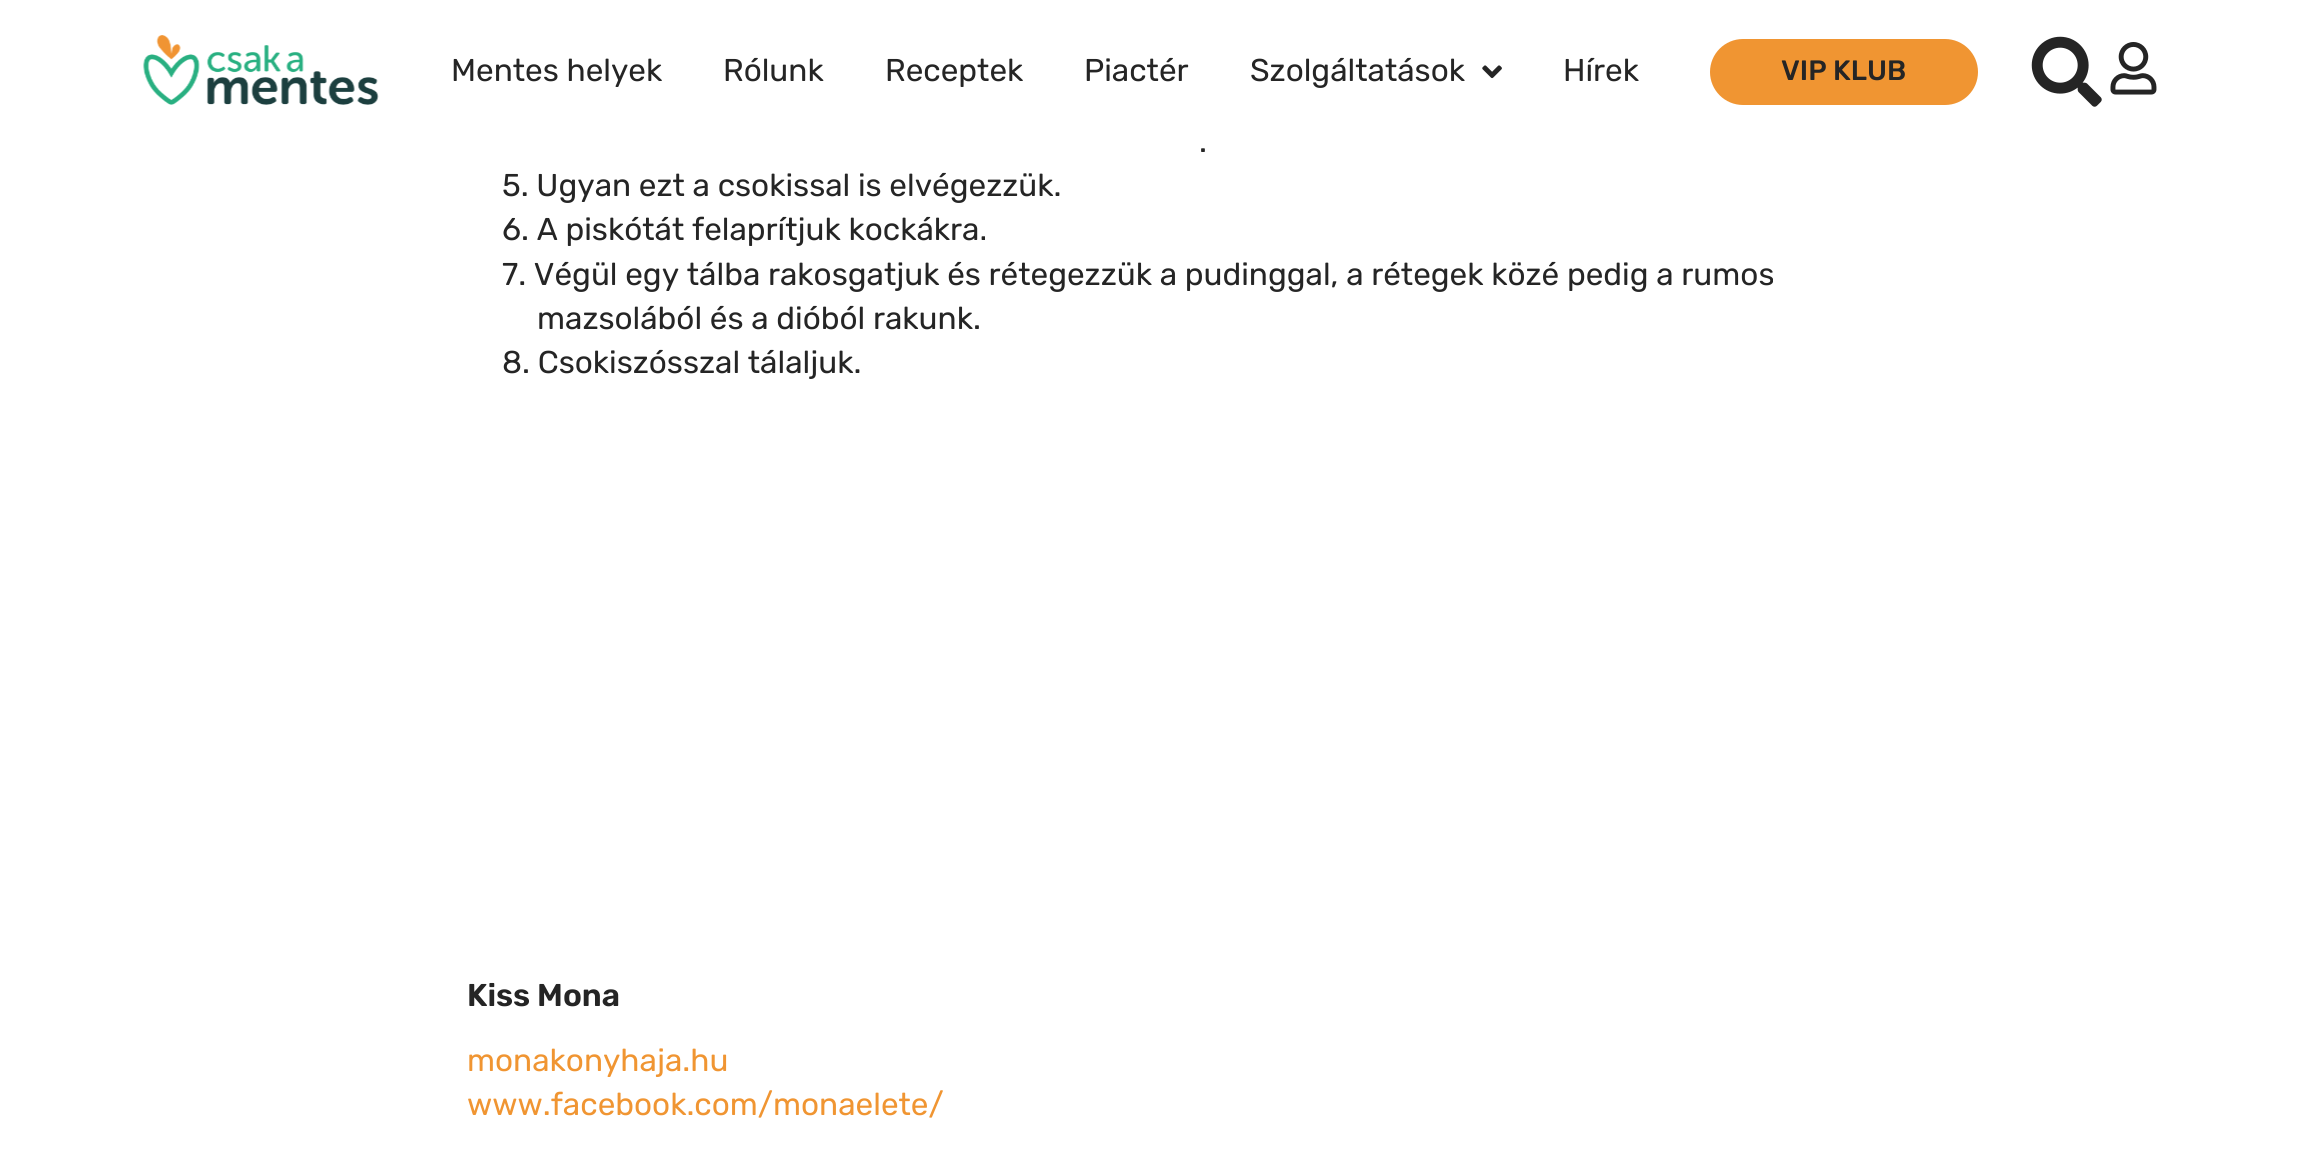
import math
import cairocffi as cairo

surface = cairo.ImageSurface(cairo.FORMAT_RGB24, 2299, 1174)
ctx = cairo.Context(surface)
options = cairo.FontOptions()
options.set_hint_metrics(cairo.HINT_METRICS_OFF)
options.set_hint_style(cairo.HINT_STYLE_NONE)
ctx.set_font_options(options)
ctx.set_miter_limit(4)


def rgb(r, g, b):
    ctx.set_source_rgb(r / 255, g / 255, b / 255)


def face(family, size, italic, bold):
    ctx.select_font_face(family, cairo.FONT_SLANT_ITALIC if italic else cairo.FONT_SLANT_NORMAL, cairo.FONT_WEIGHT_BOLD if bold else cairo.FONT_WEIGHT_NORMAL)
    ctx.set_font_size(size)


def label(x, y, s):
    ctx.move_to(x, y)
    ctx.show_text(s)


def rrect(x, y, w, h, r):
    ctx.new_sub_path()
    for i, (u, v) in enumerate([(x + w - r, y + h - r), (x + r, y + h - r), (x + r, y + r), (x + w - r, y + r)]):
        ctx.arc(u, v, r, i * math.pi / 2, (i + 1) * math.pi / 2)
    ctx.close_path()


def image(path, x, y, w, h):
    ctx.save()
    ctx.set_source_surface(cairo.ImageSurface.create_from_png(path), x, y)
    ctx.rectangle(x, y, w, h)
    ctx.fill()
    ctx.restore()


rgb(255, 255, 255)
ctx.paint()
image('image0.png', 143, 35, 236, 70)
face('Rubik', 31.5, 0, 0)
rgb(37, 37, 37)
label(451, 81, 'Mentes helyek')
label(723, 81, 'Rólunk')
label(885, 81, 'Receptek')
label(1084, 81, 'Piactér')
label(1250, 81, 'Szolgáltatások')
image('image1.png', 1482, 65, 20, 14)
label(1563, 81, 'Hírek')
rgb(240, 149, 50)
rrect(1710, 39, 268, 66, 33)
ctx.fill()
face('Rubik Medium', 28, 0, 0)
rgb(37, 37, 37)
label(1781, 80, 'VIP KLUB')
image('image2.png', 2031, 36, 71, 71)
image('image3.png', 2110, 42, 47, 53)
face('Rubik', 31.5, 0, 0)
label(1199, 152, '.')
label(502, 196, '5. Ugyan ezt a csokissal is elvégezzük.')
label(502, 240, '6. A piskótát felaprítjuk kockákra.')
label(502, 285, '7. Végül egy tálba rakosgatjuk és rétegezzük a pudinggal, a rétegek közé pedig a rumos')
label(537, 329, 'mazsolából és a dióból rakunk.')
label(502, 373, '8. Csokiszósszal tálaljuk.')
face('Rubik SemiBold', 31.5, 0, 0)
label(467, 1006, 'Kiss Mona')
face('Rubik', 31.5, 0, 0)
rgb(240, 149, 50)
label(467, 1071, 'monakonyhaja.hu')
label(467, 1115, 'www.facebook.com/monaelete/')
surface.write_to_png('render.png')
